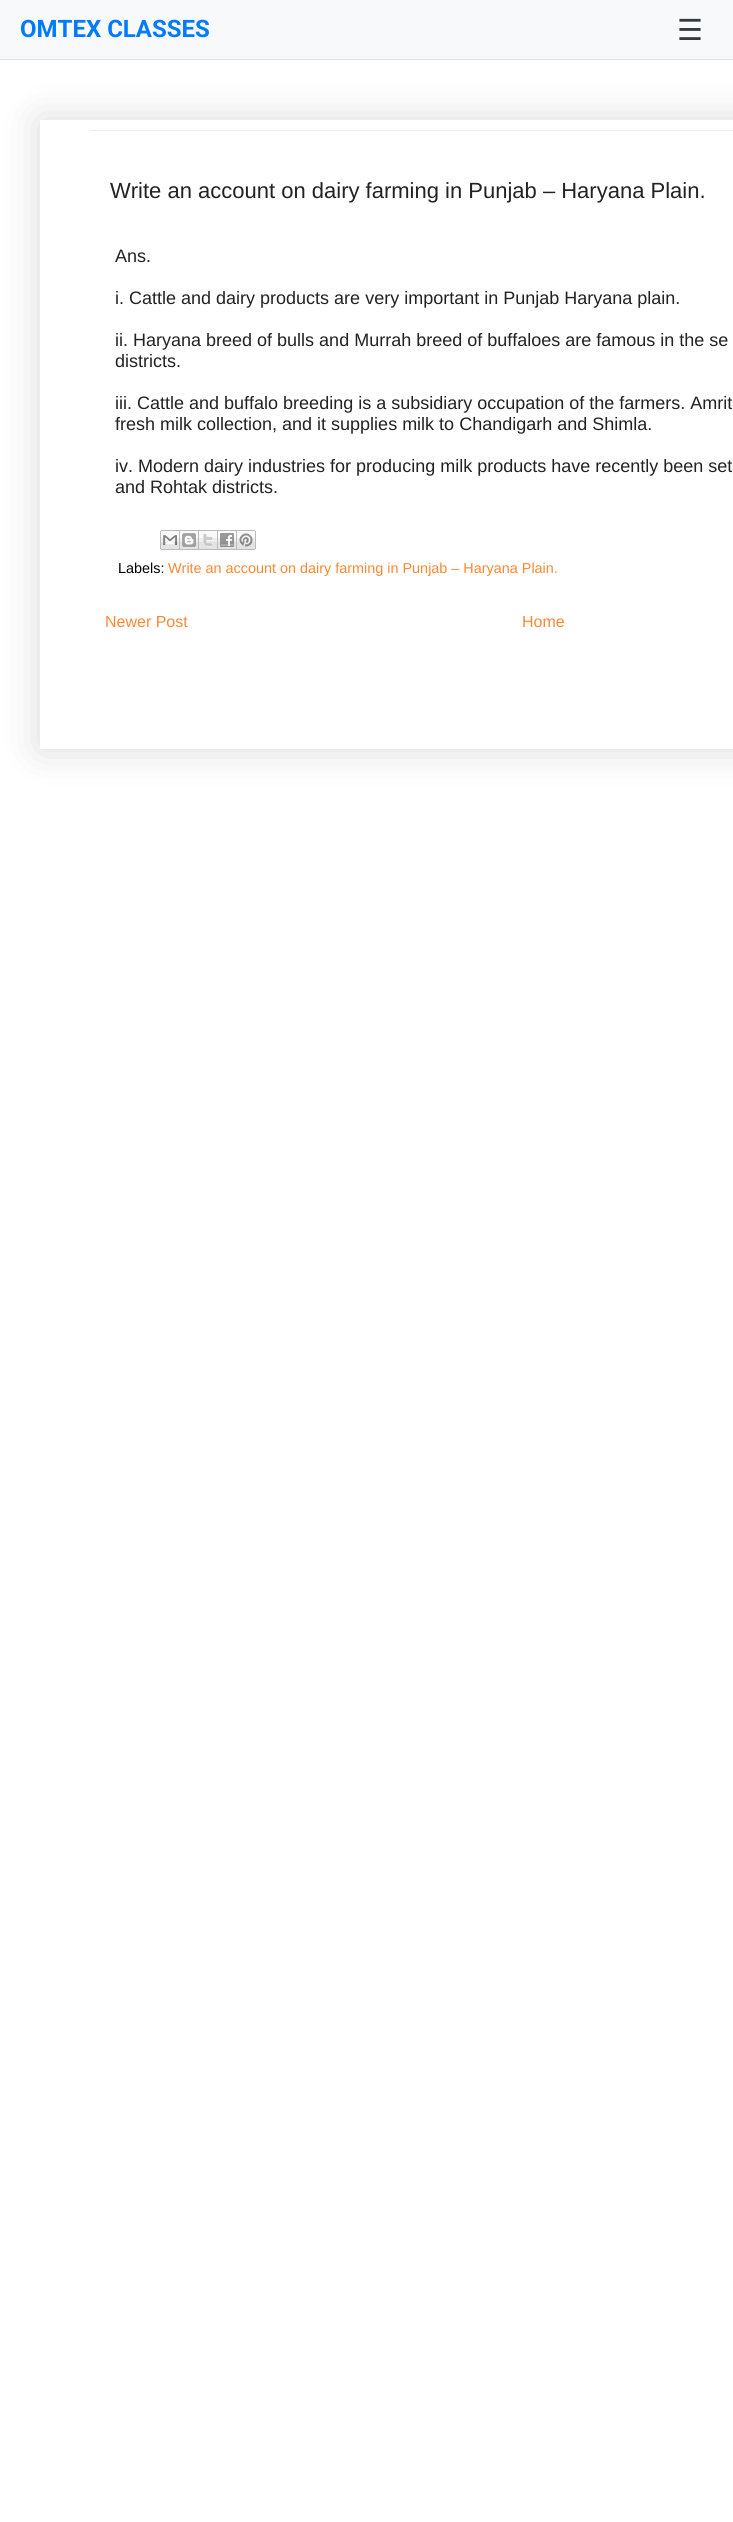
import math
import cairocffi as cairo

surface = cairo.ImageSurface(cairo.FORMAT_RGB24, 733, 2522)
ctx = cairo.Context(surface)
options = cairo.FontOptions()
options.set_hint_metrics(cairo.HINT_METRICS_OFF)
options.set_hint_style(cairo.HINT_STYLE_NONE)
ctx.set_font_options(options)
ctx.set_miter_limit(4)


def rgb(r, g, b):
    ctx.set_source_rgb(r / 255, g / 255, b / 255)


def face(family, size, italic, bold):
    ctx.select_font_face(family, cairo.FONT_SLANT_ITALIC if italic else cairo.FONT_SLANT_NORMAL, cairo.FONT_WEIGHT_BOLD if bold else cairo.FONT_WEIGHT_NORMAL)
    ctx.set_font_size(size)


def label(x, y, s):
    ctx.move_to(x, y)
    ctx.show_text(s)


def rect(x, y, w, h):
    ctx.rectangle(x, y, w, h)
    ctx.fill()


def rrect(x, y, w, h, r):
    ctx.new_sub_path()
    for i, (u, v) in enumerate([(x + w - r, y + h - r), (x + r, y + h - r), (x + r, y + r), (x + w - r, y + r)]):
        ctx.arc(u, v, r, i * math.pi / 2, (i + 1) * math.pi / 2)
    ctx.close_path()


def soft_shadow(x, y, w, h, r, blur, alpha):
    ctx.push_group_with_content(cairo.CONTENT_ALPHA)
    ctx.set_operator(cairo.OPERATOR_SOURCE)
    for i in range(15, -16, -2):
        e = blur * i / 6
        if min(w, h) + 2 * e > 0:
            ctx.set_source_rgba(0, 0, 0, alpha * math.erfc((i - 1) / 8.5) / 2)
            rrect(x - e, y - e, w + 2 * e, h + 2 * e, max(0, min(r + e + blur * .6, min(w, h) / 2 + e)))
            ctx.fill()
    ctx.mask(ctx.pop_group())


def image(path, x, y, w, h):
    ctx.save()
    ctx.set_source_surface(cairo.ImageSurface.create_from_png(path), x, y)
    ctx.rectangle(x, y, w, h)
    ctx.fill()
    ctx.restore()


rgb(255, 255, 255)
ctx.paint()
rgb(248, 249, 250)
rect(0, 0, 733, 59)
ctx.save()
ctx.set_fill_rule(cairo.FILL_RULE_EVEN_ODD)
ctx.new_path()
ctx.move_to(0, 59)
ctx.line_to(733, 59)
ctx.line_to(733, 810)
ctx.line_to(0, 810)
ctx.close_path()
ctx.move_to(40, 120)
ctx.line_to(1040, 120)
ctx.line_to(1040, 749)
ctx.line_to(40, 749)
ctx.close_path()
ctx.clip()
rgb(0, 0, 0)
soft_shadow(40, 120, 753, 629, 0, 20, 0.15)
ctx.restore()
rgb(224, 224, 224)
rect(0, 59, 733, 1)
face('Roboto', 24, 0, 1)
rgb(0, 123, 255)
label(20, 37, 'OMTEX CLASSES')
face('DejaVu Sans', 29, 0, 0)
rgb(52, 58, 64)
label(677, 40, '☰')
rgb(238, 238, 238)
rect(90, 130, 643, 1)
face('Liberation Sans', 22, 0, 0)
rgb(34, 34, 34)
label(110, 198, 'Write an account on dairy farming in Punjab – Haryana Plain.')
face('Liberation Sans', 18, 0, 0)
label(115, 262, 'Ans.')
label(115, 304, 'i. Cattle and dairy products are very important in Punjab Haryana plain.')
label(115, 346, 'ii. Haryana breed of bulls and Murrah breed of buffaloes are famous in the se')
label(115, 367, 'districts.')
label(115, 409, 'iii. Cattle and buffalo breeding is a subsidiary occupation of the farmers. Amrit')
label(115, 430, 'fresh milk collection, and it supplies milk to Chandigarh and Shimla.')
label(115, 472, 'iv. Modern dairy industries for producing milk products have recently been set')
label(115, 493, 'and Rohtak districts.')
image('image0.png', 160, 530, 20, 20)
image('image1.png', 180, 530, 19, 20)
image('image2.png', 199, 530, 19, 20)
image('image3.png', 218, 530, 19, 20)
image('image4.png', 237, 530, 19, 20)
face('Liberation Sans', 14.4, 0, 0)
rgb(0, 0, 0)
label(118, 573, 'Labels:')
rgb(255, 136, 51)
label(168, 573, 'Write an account on dairy farming in Punjab – Haryana Plain.')
face('Liberation Sans', 16, 0, 0)
label(105, 627, 'Newer Post')
label(522, 627, 'Home')
surface.write_to_png('render.png')
